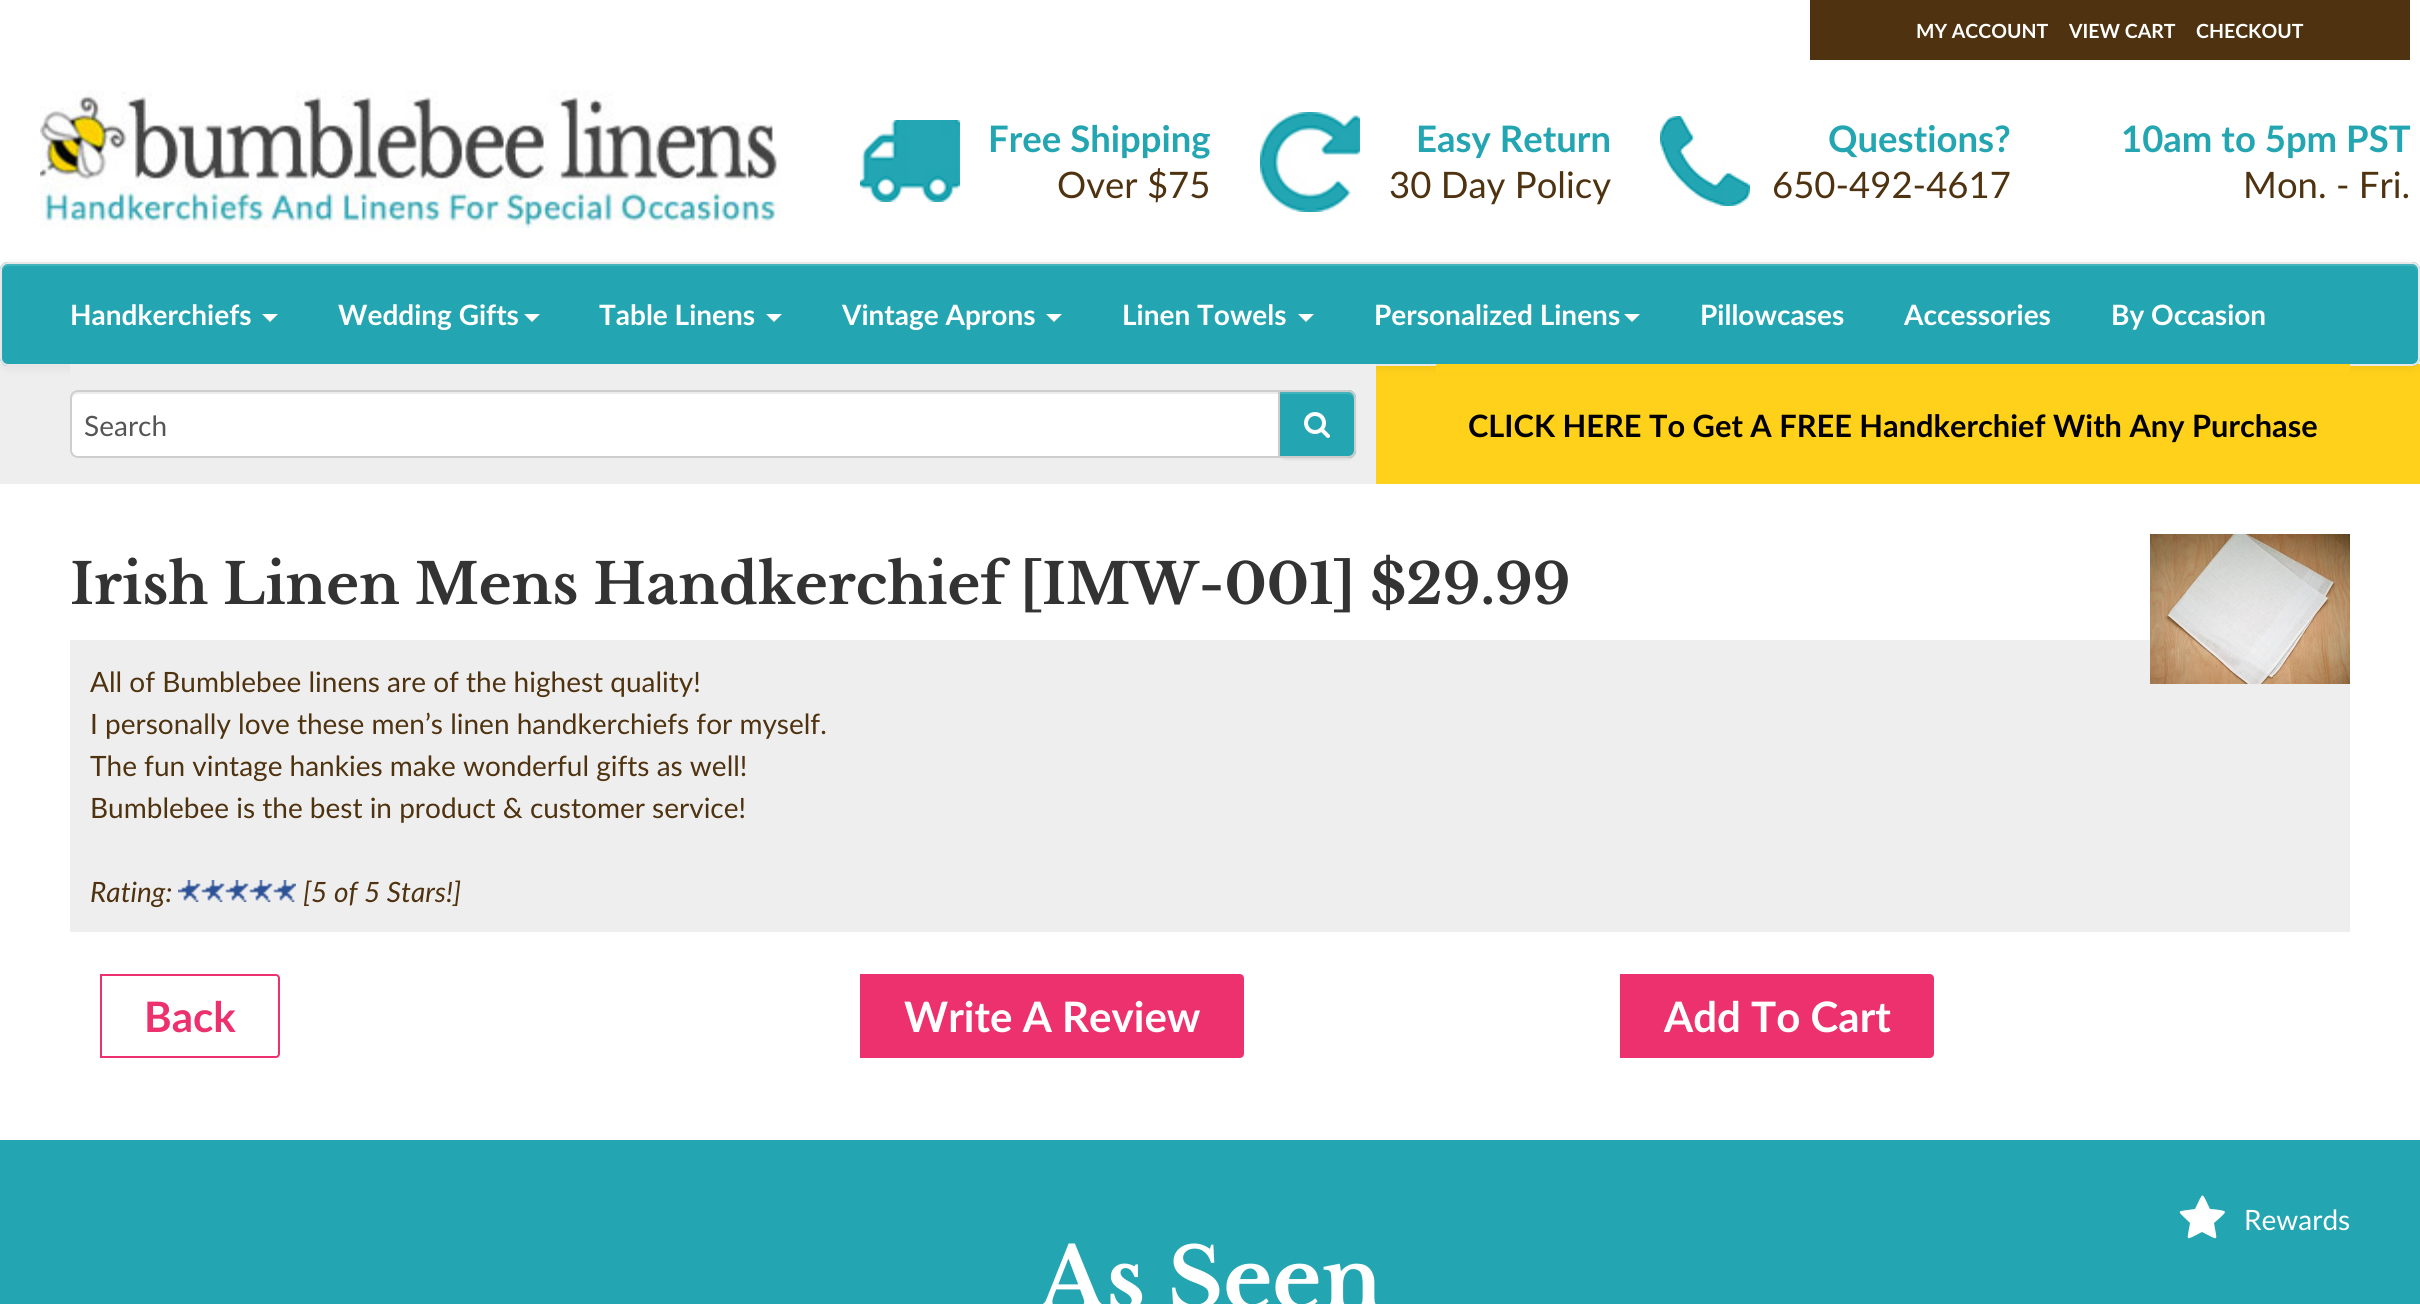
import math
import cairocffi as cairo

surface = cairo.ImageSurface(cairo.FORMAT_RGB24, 2420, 1304)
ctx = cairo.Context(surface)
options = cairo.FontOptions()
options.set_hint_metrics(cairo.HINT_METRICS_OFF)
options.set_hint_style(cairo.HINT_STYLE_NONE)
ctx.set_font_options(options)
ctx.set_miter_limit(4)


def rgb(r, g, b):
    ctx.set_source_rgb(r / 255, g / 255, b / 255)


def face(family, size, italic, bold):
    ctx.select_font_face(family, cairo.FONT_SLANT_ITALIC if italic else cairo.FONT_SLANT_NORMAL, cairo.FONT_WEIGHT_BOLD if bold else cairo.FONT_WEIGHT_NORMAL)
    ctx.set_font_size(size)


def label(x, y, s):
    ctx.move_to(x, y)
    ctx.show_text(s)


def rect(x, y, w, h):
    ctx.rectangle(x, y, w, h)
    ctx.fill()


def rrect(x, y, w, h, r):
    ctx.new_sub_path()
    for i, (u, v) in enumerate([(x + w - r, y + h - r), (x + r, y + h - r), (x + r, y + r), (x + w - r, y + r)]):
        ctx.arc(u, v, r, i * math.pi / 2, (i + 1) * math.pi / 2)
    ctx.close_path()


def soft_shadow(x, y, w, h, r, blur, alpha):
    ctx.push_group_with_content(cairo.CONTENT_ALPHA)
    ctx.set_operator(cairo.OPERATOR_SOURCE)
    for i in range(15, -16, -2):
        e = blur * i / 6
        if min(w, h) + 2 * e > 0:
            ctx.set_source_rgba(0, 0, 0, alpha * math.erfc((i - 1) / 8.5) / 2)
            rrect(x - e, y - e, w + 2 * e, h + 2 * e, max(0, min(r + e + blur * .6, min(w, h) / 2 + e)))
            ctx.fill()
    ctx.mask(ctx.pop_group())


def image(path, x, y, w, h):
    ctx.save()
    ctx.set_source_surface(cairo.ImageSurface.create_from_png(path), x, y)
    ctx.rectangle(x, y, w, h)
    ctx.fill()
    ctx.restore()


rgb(255, 255, 255)
ctx.paint()
rgb(79, 51, 16)
rect(1810, 0, 600, 60)
face('Lato', 19.5, 0, 1)
rgb(255, 255, 255)
label(1916, 38, 'MY ACCOUNT')
label(2069, 38, 'VIEW CART')
label(2196, 38, 'CHECKOUT')
image('image0.png', 40, 90, 740, 138)
image('image1.png', 860, 120, 100, 82)
face('Lato', 36.5, 0, 1)
rgb(36, 166, 178)
label(988, 152, 'Free Shipping')
face('Lato', 36.5, 0, 0)
rgb(79, 51, 16)
label(1057, 198, 'Over $75')
image('image2.png', 1260, 112, 100, 100)
face('Lato', 36.5, 0, 1)
rgb(36, 166, 178)
label(1416, 152, 'Easy Return')
face('Lato', 36.5, 0, 0)
rgb(79, 51, 16)
label(1389, 198, '30 Day Policy')
image('image3.png', 1660, 116, 90, 90)
face('Lato', 36.5, 0, 1)
rgb(36, 166, 178)
label(1828, 152, 'Questions?')
face('Lato', 36.5, 0, 0)
rgb(79, 51, 16)
label(1772, 198, '650-492-4617')
face('Lato', 36.5, 0, 1)
rgb(36, 166, 178)
label(2121, 152, '10am to 5pm PST')
face('Lato', 36.5, 0, 0)
rgb(79, 51, 16)
label(2243, 198, 'Mon. - Fri.')
image('image4.png', 0, 364, 2420, 120)
rgb(0, 0, 0)
soft_shadow(0, 264, 2420, 104, 8, 5, 0.07)
rgb(36, 166, 178)
rrect(0, 262, 2420, 104, 8)
ctx.fill()
rgb(69, 179, 190)
ctx.new_path()
ctx.move_to(8, 266)
ctx.line_to(2412, 266)
ctx.curve_to(2415, 266, 2418, 269, 2418, 272)
ctx.line_to(2418, 270)
ctx.curve_to(2418, 267, 2415, 264, 2412, 264)
ctx.line_to(8, 264)
ctx.curve_to(5, 264, 2, 267, 2, 270)
ctx.line_to(2, 272)
ctx.curve_to(2, 269, 5, 266, 8, 266)
ctx.close_path()
ctx.fill()
rrect(1, 263, 2418, 102, 7)
rgb(231, 231, 231)
ctx.stroke()
face('Lato', 28, 0, 1)
rgb(255, 255, 255)
label(70, 325, 'Handkerchiefs')
ctx.new_path()
ctx.move_to(262, 314)
ctx.line_to(278, 314)
ctx.line_to(270, 322)
ctx.close_path()
ctx.fill()
label(338, 325, 'Wedding Gifts')
ctx.new_path()
ctx.move_to(524, 314)
ctx.line_to(540, 314)
ctx.line_to(532, 322)
ctx.close_path()
ctx.fill()
label(599, 325, 'Table Linens')
ctx.new_path()
ctx.move_to(766, 314)
ctx.line_to(782, 314)
ctx.line_to(774, 322)
ctx.close_path()
ctx.fill()
label(842, 325, 'Vintage Aprons')
ctx.new_path()
ctx.move_to(1046, 314)
ctx.line_to(1062, 314)
ctx.line_to(1054, 322)
ctx.close_path()
ctx.fill()
label(1122, 325, 'Linen Towels')
ctx.new_path()
ctx.move_to(1298, 314)
ctx.line_to(1314, 314)
ctx.line_to(1306, 322)
ctx.close_path()
ctx.fill()
label(1374, 325, 'Personalized Linens')
ctx.new_path()
ctx.move_to(1624, 314)
ctx.line_to(1640, 314)
ctx.line_to(1632, 322)
ctx.close_path()
ctx.fill()
label(1700, 325, 'Pillowcases')
label(1904, 325, 'Accessories')
label(2111, 325, 'By Occasion')
rgb(238, 238, 238)
rect(70, 364, 1306, 120)
rgb(255, 255, 255)
ctx.new_path()
ctx.move_to(78, 390)
ctx.line_to(1280, 390)
ctx.line_to(1280, 458)
ctx.line_to(78, 458)
ctx.curve_to(73.5, 458, 70, 454.5, 70, 450)
ctx.line_to(70, 398)
ctx.curve_to(70, 393.5, 73.5, 390, 78, 390)
ctx.close_path()
ctx.fill()
rgb(236, 236, 236)
ctx.new_path()
ctx.move_to(78, 394)
ctx.line_to(1278, 394)
ctx.line_to(1278, 392)
ctx.line_to(78, 392)
ctx.curve_to(75, 392, 72, 395, 72, 398)
ctx.line_to(72, 400)
ctx.curve_to(72, 397, 75, 394, 78, 394)
ctx.close_path()
ctx.fill()
ctx.new_path()
ctx.move_to(78, 391)
ctx.line_to(1279, 391)
ctx.line_to(1279, 457)
ctx.line_to(78, 457)
ctx.curve_to(74, 457, 71, 454, 71, 450)
ctx.line_to(71, 398)
ctx.curve_to(71, 394, 74, 391, 78, 391)
ctx.close_path()
rgb(206, 206, 206)
ctx.stroke()
face('Lato', 28, 0, 0)
rgb(85, 85, 85)
label(84, 436, 'Search')
rgb(0, 0, 0)
soft_shadow(1278, 392, 78, 68, 8, 1, 0.07)
rgb(36, 166, 178)
ctx.new_path()
ctx.move_to(1278, 390)
ctx.line_to(1348, 390)
ctx.curve_to(1352.5, 390, 1356, 393.5, 1356, 398)
ctx.line_to(1356, 450)
ctx.curve_to(1356, 454.5, 1352.5, 458, 1348, 458)
ctx.line_to(1278, 458)
ctx.close_path()
ctx.fill()
rgb(69, 179, 190)
ctx.new_path()
ctx.move_to(1280, 394)
ctx.line_to(1348, 394)
ctx.curve_to(1351, 394, 1354, 397, 1354, 400)
ctx.line_to(1354, 398)
ctx.curve_to(1354, 395, 1351, 392, 1348, 392)
ctx.line_to(1280, 392)
ctx.close_path()
ctx.fill()
ctx.new_path()
ctx.move_to(1279, 391)
ctx.line_to(1348, 391)
ctx.curve_to(1352, 391, 1355, 394, 1355, 398)
ctx.line_to(1355, 450)
ctx.curve_to(1355, 454, 1352, 457, 1348, 457)
ctx.line_to(1279, 457)
ctx.close_path()
rgb(204, 204, 204)
ctx.stroke()
image('image5.png', 1304, 412, 26, 26)
rgb(255, 209, 26)
rect(1436, 364, 914, 9)
face('Lato', 30.8, 0, 1)
rgb(0, 0, 0)
label(1468, 437, 'CLICK HERE To Get A FREE Handkerchief With Any Purchase')
face('Libre Baskerville', 56, 0, 1)
rgb(51, 51, 51)
label(70, 604, 'Irish Linen Mens Handkerchief [IMW-001] $29.99')
rgb(238, 238, 238)
rect(70, 640, 2280, 292)
image('image6.png', 2150, 534, 200, 150)
face('Lato', 28, 0, 0)
rgb(79, 51, 16)
label(90, 692, 'All of Bumblebee linens are of the highest quality!')
label(90, 734, 'I personally love these men’s linen handkerchiefs for myself.')
label(90, 776, 'The fun vintage hankies make wonderful gifts as well!')
label(90, 818, 'Bumblebee is the best in product & customer service!')
face('Lato', 28, 1, 0)
label(90, 902, 'Rating:')
image('image7.png', 178, 880, 118, 22)
label(303, 902, '[5 of 5 Stars!]')
ctx.new_path()
ctx.move_to(101, 975)
ctx.line_to(276, 975)
ctx.curve_to(277.5, 975, 279, 976.5, 279, 978)
ctx.line_to(279, 1054)
ctx.curve_to(279, 1055.5, 277.5, 1057, 276, 1057)
ctx.line_to(101, 1057)
ctx.close_path()
rgb(236, 49, 110)
ctx.stroke()
face('Lato', 42, 0, 1)
label(144, 1032, 'Back')
ctx.new_path()
ctx.move_to(861, 975)
ctx.line_to(1240, 975)
ctx.curve_to(1241.5, 975, 1243, 976.5, 1243, 978)
ctx.line_to(1243, 1054)
ctx.curve_to(1243, 1055.5, 1241.5, 1057, 1240, 1057)
ctx.line_to(861, 1057)
ctx.close_path()
ctx.fill_preserve()
ctx.stroke()
rgb(255, 255, 255)
label(904, 1032, 'Write A Review')
rgb(236, 49, 110)
ctx.new_path()
ctx.move_to(1621, 975)
ctx.line_to(1930, 975)
ctx.curve_to(1931.5, 975, 1933, 976.5, 1933, 978)
ctx.line_to(1933, 1054)
ctx.curve_to(1933, 1055.5, 1931.5, 1057, 1930, 1057)
ctx.line_to(1621, 1057)
ctx.close_path()
ctx.fill_preserve()
ctx.stroke()
rgb(255, 255, 255)
label(1664, 1032, 'Add To Cart')
rgb(36, 166, 178)
rect(0, 1140, 2420, 164)
rgb(255, 255, 255)
ctx.new_path()
ctx.move_to(2225, 1212)
ctx.curve_to(2225, 1214, 2216, 1221, 2214, 1223)
ctx.curve_to(2217, 1242, 2220, 1241, 2202, 1232)
ctx.curve_to(2184, 1241, 2187, 1242, 2190, 1223)
ctx.curve_to(2176, 1209, 2175, 1212, 2195, 1209)
ctx.curve_to(2204, 1191, 2201, 1191, 2210, 1209)
ctx.curve_to(2212, 1209, 2225, 1210, 2225, 1212)
ctx.close_path()
ctx.fill()
face('Lato', 28, 0, 0)
label(2244, 1230, 'Rewards')
face('Libre Baskerville', 84, 0, 1)
label(1038, 1309, 'As Seen')
surface.write_to_png('render.png')
